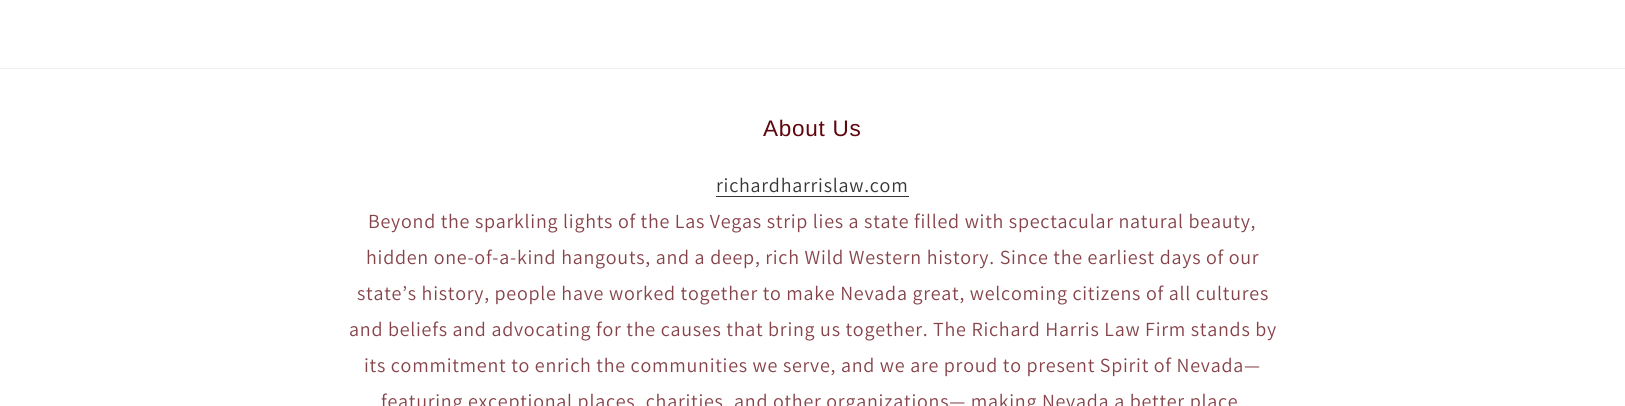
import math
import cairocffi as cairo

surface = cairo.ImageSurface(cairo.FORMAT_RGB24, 1625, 406)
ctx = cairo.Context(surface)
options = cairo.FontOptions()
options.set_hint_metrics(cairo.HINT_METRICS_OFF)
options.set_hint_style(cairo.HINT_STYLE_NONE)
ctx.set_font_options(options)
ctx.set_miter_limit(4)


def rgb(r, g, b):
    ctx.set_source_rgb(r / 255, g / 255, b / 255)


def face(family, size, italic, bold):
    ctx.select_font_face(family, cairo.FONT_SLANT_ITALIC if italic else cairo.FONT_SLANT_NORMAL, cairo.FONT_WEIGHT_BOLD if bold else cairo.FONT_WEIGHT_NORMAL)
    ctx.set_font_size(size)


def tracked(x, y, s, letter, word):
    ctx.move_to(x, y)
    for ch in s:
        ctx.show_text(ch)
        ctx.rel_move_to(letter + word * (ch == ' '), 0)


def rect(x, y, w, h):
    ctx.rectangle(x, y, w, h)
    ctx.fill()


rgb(255, 255, 255)
ctx.paint()
rgb(242, 235, 236)
rect(0, 68, 1625, 1)
face('Arimo', 22.5, 0, 0)
rgb(94, 6, 14)
tracked(763, 136, 'About Us', 0.75, 0)
face('Assistant', 20, 0, 0)
rgb(54, 54, 54)
tracked(716, 192, 'richardharrislaw.com', 0.75, 0)
rect(716, 196, 193, 1)
rgb(134, 68, 74)
tracked(368, 228, 'Beyond the sparkling lights of the Las Vegas strip lies a state filled with spectacular natural beauty,', 0.75, 0)
tracked(366, 264, 'hidden one-of-a-kind hangouts, and a deep, rich Wild Western history. Since the earliest days of our', 0.75, 0)
tracked(357, 300, 'state’s history, people have worked together to make Nevada great, welcoming citizens of all cultures', 0.75, 0)
tracked(349, 336, 'and beliefs and advocating for the causes that bring us together. The Richard Harris Law Firm stands by', 0.75, 0)
tracked(364, 372, 'its commitment to enrich the communities we serve, and we are proud to present Spirit of Nevada—', 0.75, 0)
tracked(381, 408, 'featuring exceptional places, charities, and other organizations— making Nevada a better place', 0.75, 0)
surface.write_to_png('render.png')
